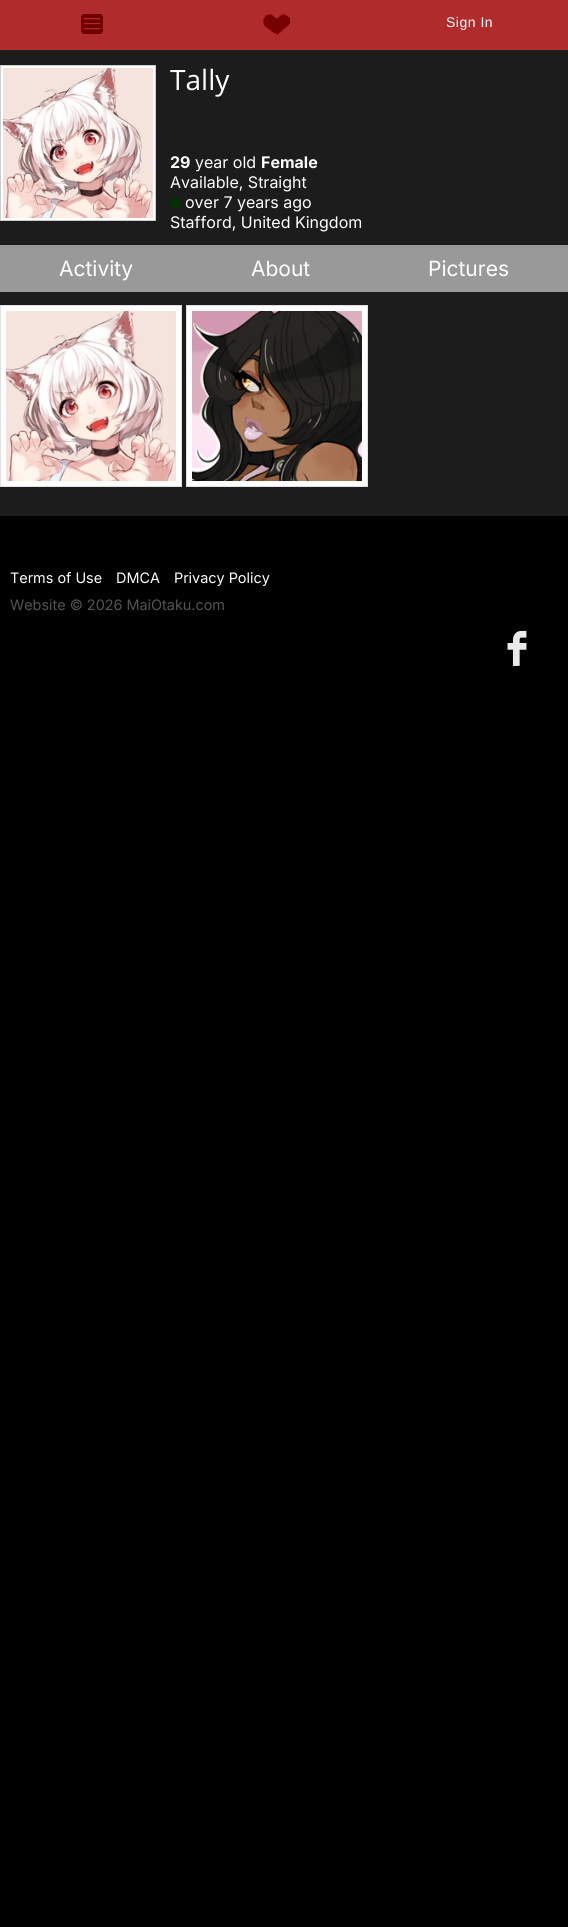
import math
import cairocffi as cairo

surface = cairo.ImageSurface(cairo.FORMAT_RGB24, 568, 1927)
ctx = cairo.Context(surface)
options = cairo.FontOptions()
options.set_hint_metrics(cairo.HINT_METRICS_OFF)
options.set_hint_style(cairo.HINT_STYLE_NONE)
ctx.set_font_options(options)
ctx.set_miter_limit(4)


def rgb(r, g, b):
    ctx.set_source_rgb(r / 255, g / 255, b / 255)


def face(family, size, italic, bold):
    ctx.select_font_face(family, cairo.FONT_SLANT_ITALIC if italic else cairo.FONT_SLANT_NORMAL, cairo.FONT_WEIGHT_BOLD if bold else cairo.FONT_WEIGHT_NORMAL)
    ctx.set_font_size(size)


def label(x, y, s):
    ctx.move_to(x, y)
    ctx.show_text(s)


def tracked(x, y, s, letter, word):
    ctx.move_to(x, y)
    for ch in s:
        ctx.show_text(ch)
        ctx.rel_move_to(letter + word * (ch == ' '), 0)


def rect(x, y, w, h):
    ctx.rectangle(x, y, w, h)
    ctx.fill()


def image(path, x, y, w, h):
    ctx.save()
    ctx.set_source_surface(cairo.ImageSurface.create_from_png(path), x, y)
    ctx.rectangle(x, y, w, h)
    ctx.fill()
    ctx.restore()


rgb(0, 0, 0)
ctx.paint()
rgb(176, 43, 44)
rect(0, 0, 568, 50)
rgb(34, 34, 34)
rect(0, 50, 568, 1)
image('image0.png', 81, 14, 22, 20)
image('image1.png', 263, 14, 27, 21)
face('Liberation Sans', 14, 0, 0)
rgb(255, 255, 255)
tracked(446, 27, 'Sign In', 0.5, 0)
rgb(29, 28, 28)
rect(0, 51, 568, 465)
rgb(255, 255, 255)
ctx.rectangle(0.5, 65.5, 155, 155)
ctx.fill_preserve()
rgb(204, 204, 204)
ctx.set_line_width(1)
ctx.stroke()
image('image2.png', 3, 68, 150, 150)
face('Open Sans', 28, 0, 0)
rgb(255, 255, 255)
label(170, 90, 'Tally')
face('Inter', 16, 0, 1)
label(170, 168, '29')
face('Inter', 16, 0, 0)
label(195, 168, 'year old')
face('Inter', 16, 0, 1)
label(261, 168, 'Female')
face('Inter', 16, 0, 0)
label(170, 188, 'Available, Straight')
rgb(0, 51, 0)
ctx.new_path()
ctx.arc(175, 203, 5, 0, 2 * math.pi)
ctx.fill()
rgb(255, 255, 255)
label(185, 208, 'over 7 years ago')
label(170, 228, 'Stafford, United Kingdom')
rgb(153, 153, 153)
rect(0, 245, 568, 47)
face('Inter', 21, 0, 0)
rgb(255, 255, 255)
label(59, 276, 'Activity')
label(251, 276, 'About')
label(428, 276, 'Pictures')
ctx.rectangle(0.5, 305.5, 181, 181)
ctx.fill_preserve()
rgb(224, 224, 224)
ctx.stroke()
image('image3.png', 6, 311, 170, 170)
rgb(255, 255, 255)
ctx.rectangle(186.5, 305.5, 181, 181)
ctx.fill_preserve()
rgb(224, 224, 224)
ctx.stroke()
image('image4.png', 192, 311, 170, 170)
face('Inter', 14.4, 0, 0)
rgb(255, 255, 255)
label(10, 583, 'Terms of Use')
label(116, 583, 'DMCA')
label(174, 583, 'Privacy Policy')
rgb(85, 85, 85)
label(10, 610, 'Website © 2026 MaiOtaku.com')
image('image5.png', 507, 630, 20, 36)
surface.write_to_png('render.png')
